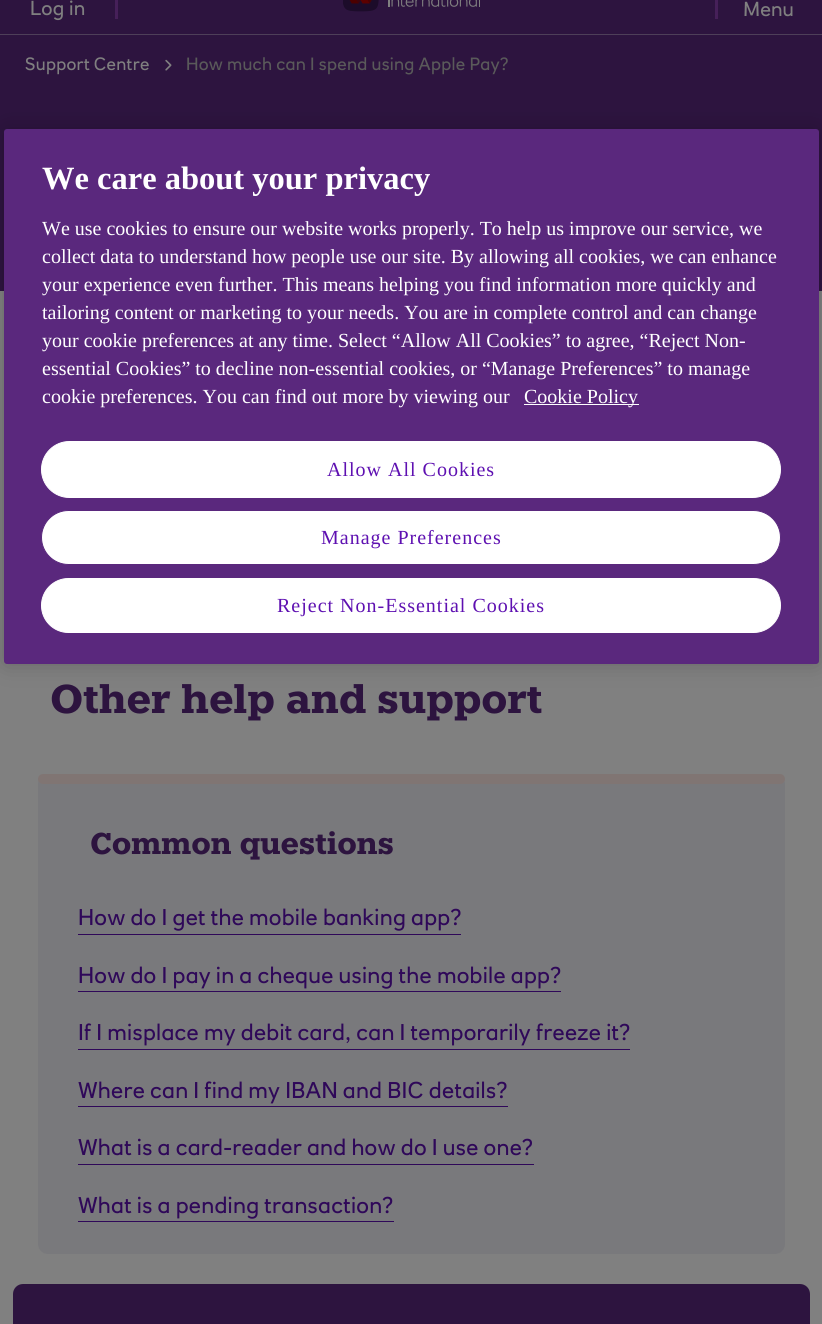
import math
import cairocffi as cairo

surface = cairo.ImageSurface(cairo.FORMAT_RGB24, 822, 1324)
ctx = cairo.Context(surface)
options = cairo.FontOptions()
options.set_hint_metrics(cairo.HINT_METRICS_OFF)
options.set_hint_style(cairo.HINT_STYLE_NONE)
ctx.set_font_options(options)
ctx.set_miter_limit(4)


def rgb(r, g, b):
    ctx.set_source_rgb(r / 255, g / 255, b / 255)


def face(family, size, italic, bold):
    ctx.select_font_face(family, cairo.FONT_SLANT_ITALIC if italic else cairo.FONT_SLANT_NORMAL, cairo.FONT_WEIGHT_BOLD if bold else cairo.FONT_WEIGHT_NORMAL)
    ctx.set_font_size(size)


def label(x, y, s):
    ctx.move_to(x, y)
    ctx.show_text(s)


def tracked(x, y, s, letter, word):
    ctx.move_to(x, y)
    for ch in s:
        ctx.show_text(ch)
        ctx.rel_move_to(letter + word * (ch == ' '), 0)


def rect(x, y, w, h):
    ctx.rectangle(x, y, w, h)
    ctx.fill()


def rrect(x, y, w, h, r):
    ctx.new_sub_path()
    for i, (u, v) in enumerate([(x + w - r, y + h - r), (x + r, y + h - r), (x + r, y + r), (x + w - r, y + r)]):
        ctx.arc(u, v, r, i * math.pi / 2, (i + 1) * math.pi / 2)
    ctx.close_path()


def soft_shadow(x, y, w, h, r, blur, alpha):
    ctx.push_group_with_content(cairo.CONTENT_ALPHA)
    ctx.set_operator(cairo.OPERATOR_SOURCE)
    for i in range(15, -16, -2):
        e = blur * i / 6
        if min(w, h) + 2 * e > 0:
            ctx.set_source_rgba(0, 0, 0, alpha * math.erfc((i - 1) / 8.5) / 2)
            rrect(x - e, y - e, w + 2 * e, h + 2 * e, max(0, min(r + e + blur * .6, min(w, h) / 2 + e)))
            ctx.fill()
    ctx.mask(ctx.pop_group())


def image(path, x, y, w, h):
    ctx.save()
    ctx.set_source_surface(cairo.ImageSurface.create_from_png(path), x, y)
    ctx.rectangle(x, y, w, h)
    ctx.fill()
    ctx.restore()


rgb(128, 128, 128)
ctx.paint()
rgb(45, 20, 63)
rect(0, 0, 822, 34)
face('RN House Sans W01', 20, 0, 0)
rgb(128, 128, 128)
tracked(30, 15, 'Log in', 0.25, 0)
rgb(70, 32, 89)
rect(115, 0, 3, 19)
image('image0.png', 343, 0, 137, 12)
rect(715, 0, 3, 19)
rgb(128, 128, 128)
label(743, 16, 'Menu')
rgb(45, 20, 63)
rect(0, 35, 822, 256)
rgb(78, 63, 89)
rect(0, 34, 822, 1)
face('RN House Sans W01', 17.5, 0, 0)
rgb(128, 128, 128)
tracked(25, 70, 'Support Centre', 0.25, 0)
image('image1.png', 165, 59, 7, 12)
rgb(90, 90, 90)
tracked(186, 70, 'How much can I spend using Apple Pay?', 0.25, 0)
face('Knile', 40, 0, 1)
rgb(45, 20, 63)
tracked(50, 713, 'Other help and support', -0.25, 0)
rgb(121, 121, 124)
rrect(38, 774, 747, 480, 10)
ctx.fill()
rgb(128, 117, 115)
rrect(38, 774, 747, 10, 5)
ctx.fill()
face('Knile', 30, 0, 1)
rgb(45, 20, 63)
tracked(90, 854, 'Common questions', -0.25, 0)
face('RN House Sans W01', 22.5, 0, 0)
rgb(47, 8, 89)
tracked(78, 925, 'How do I get the mobile banking app?', 0.25, 0)
rect(78, 934, 383, 1)
tracked(78, 983, 'How do I pay in a cheque using the mobile app?', 0.25, 0)
rect(78, 991, 483, 1)
tracked(78, 1040, 'If I misplace my debit card, can I temporarily freeze it?', 0.25, 0)
rect(78, 1049, 552, 1)
tracked(78, 1098, 'Where can I find my IBAN and BIC details?', 0.25, 0)
rect(78, 1106, 430, 1)
tracked(78, 1155, 'What is a card-reader and how do I use one?', 0.25, 0)
rect(78, 1164, 456, 1)
tracked(78, 1213, 'What is a pending transaction?', 0.25, 0)
rect(78, 1221, 316, 1)
rgb(45, 20, 63)
rrect(13, 1284, 797, 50, 10)
ctx.fill()
rgb(0, 0, 0)
soft_shadow(4, 129, 815, 535, 3, 11, 0.2)
rgb(90, 40, 125)
rrect(4, 129, 815, 535, 3)
ctx.fill()
face('Liberation Serif', 32.5, 0, 1)
rgb(255, 255, 255)
label(42, 189, 'We care about your privacy')
face('Liberation Serif', 20, 0, 0)
label(42, 235, 'We use cookies to ensure our website works properly. To help us improve our service, we')
label(42, 263, 'collect data to understand how people use our site. By allowing all cookies, we can enhance')
label(42, 291, 'your experience even further. This means helping you find information more quickly and')
label(42, 319, 'tailoring content or marketing to your needs. You are in complete control and can change')
label(42, 347, 'your cookie preferences at any time. Select “Allow All Cookies” to agree, “Reject Non-')
label(42, 375, 'essential Cookies” to decline non-essential cookies, or “Manage Preferences” to manage')
label(42, 403, 'cookie preferences. You can find out more by viewing our')
rect(524, 404, 115, 1)
label(524, 403, 'Cookie Policy')
rrect(41.5, 441.5, 739, 56, 28)
ctx.fill_preserve()
ctx.set_line_width(1)
ctx.stroke()
rgb(94, 16, 177)
tracked(327, 476, 'Allow All Cookies', 1, 0)
rgb(255, 255, 255)
rrect(41.5, 510.5, 739, 54, 27)
ctx.fill_preserve()
rgb(90, 40, 125)
ctx.stroke()
rgb(94, 16, 177)
tracked(321, 544, 'Manage Preferences', 1, 0)
rgb(255, 255, 255)
rrect(41.5, 578.5, 739, 54, 27)
ctx.fill_preserve()
ctx.stroke()
rgb(94, 16, 177)
tracked(277, 612, 'Reject Non-Essential Cookies', 1, 0)
surface.write_to_png('render.png')
